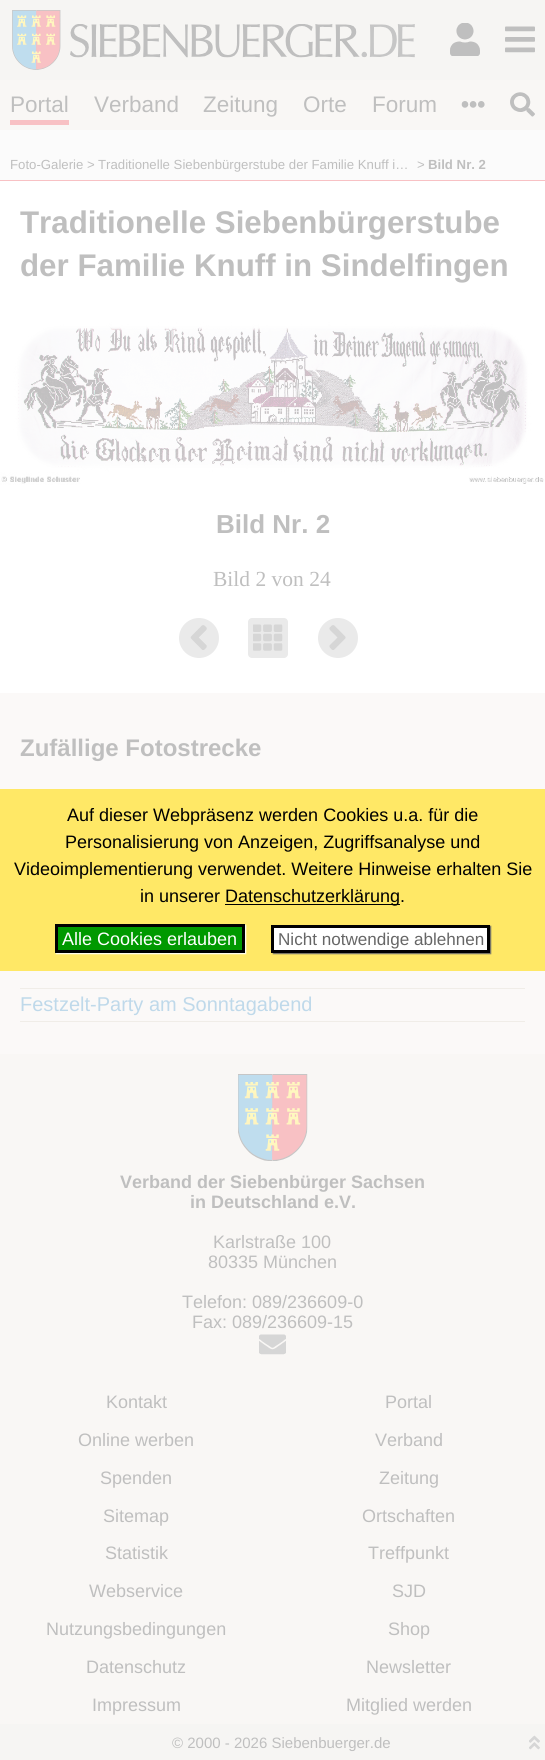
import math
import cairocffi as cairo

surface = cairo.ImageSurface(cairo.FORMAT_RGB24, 545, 1760)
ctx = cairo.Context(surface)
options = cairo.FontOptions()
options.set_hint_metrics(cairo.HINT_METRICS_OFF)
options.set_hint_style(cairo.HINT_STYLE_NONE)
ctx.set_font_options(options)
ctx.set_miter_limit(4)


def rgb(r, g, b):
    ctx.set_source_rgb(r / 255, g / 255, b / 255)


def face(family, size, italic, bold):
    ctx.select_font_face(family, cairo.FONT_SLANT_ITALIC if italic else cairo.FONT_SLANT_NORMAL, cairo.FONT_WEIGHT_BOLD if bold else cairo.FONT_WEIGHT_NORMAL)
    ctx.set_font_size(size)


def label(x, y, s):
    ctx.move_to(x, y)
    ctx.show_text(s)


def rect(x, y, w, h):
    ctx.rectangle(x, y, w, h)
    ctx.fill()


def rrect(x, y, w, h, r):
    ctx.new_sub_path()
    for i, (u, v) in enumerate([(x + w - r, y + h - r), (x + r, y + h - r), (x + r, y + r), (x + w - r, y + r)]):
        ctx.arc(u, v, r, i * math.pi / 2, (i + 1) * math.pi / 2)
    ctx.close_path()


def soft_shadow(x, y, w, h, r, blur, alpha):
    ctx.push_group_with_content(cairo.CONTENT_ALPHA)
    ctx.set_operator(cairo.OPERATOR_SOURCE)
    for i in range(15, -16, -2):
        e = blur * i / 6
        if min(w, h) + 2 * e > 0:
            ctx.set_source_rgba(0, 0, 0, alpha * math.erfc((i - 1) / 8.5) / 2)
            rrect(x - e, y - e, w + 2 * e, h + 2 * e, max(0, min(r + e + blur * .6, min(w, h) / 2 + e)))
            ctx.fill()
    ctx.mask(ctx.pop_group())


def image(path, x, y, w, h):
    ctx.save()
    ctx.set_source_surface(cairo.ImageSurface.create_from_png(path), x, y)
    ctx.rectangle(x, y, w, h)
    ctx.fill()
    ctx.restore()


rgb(255, 255, 255)
ctx.paint()
rgb(246, 245, 243)
rect(0, 0, 545, 80)
image('image0.png', 505, 26, 30, 27)
image('image1.png', 12, 10, 49, 60)
image('image2.png', 70, 24, 345, 34)
image('image3.png', 450, 23, 30, 33)
rgb(249, 247, 245)
rect(0, 80, 545, 50)
rgb(248, 193, 196)
rect(10, 120, 59, 5)
face('Liberation Sans', 22.5, 0, 0)
rgb(191, 191, 191)
label(10, 112, 'Portal')
label(94, 112, 'Verband')
label(203, 112, 'Zeitung')
label(303, 112, 'Orte')
label(372, 112, 'Forum')
image('image4.png', 461, 101, 24, 7)
image('image5.png', 510, 92, 25, 25)
rgb(251, 251, 251)
rect(0, 130, 545, 50)
rgb(248, 193, 196)
rect(0, 180, 545, 1)
face('Liberation Sans', 13.2, 0, 0)
rgb(191, 191, 191)
label(10, 169, 'Foto-Galerie')
label(87, 169, '>')
label(98, 169, 'Traditionelle Siebenbürgerstube der Familie Knuff i…')
label(417, 169, '>')
face('Liberation Sans', 13.2, 0, 1)
label(428, 169, 'Bild Nr. 2')
face('Liberation Sans', 31.3, 0, 1)
label(20, 233, 'Traditionelle Siebenbürgerstube')
label(20, 276, 'der Familie Knuff in Sindelfingen')
image('image6.png', 0, 309, 545, 176)
face('Liberation Sans', 26, 0, 1)
label(216, 533, 'Bild Nr. 2')
face('Liberation Serif', 21.5, 0, 0)
label(213, 586, 'Bild 2 von 24')
rgb(234, 234, 234)
ctx.new_path()
ctx.arc(199, 638, 20, 0, 2 * math.pi)
ctx.fill()
image('image7.png', 190, 625, 17, 25)
rrect(248, 618, 40, 40, 4)
ctx.fill()
image('image8.png', 253, 624, 30, 27)
ctx.arc(338, 638, 20, 0, 2 * math.pi)
ctx.fill()
image('image9.png', 329, 625, 17, 25)
rgb(251, 249, 248)
rect(0, 693, 545, 361)
face('Liberation Sans', 24, 0, 1)
rgb(191, 191, 191)
label(20, 756, 'Zufällige Fotostrecke')
rgb(240, 237, 232)
rect(20, 988, 505, 1)
rect(20, 1021, 505, 1)
face('Liberation Sans', 20, 0, 0)
rgb(191, 217, 234)
label(20, 1011, 'Festzelt-Party am Sonntagabend')
rgb(255, 232, 102)
rect(0, 789, 545, 182)
face('Liberation Sans', 18, 0, 0)
rgb(0, 0, 0)
label(67, 821, 'Auf dieser Webpräsenz werden Cookies u.a. für die')
label(65, 848, 'Personalisierung von Anzeigen, Zugriffsanalyse und')
label(14, 875, 'Videoimplementierung verwendet. Weitere Hinweise erhalten Sie')
label(140, 902, 'in unserer')
rect(225, 904, 175, 1)
label(225, 902, 'Datenschutzerklärung.')
rgb(255, 255, 255)
soft_shadow(56, 925, 190, 29, 0, 0.5, 1)
rgb(0, 153, 0)
ctx.rectangle(56.5, 925.5, 187, 26)
ctx.fill_preserve()
rgb(0, 0, 0)
ctx.set_line_width(3)
ctx.stroke()
rgb(255, 255, 255)
label(62, 945, 'Alle Cookies erlauben')
rgb(102, 102, 102)
soft_shadow(273, 926, 218, 28, 0, 0.5, 1)
rgb(255, 255, 255)
ctx.rectangle(272.5, 926.5, 216, 25)
ctx.fill_preserve()
rgb(0, 0, 0)
ctx.stroke()
face('Liberation Sans', 17.1, 0, 0)
rgb(102, 102, 102)
label(278, 945, 'Nicht notwendige ablehnen')
rgb(249, 247, 245)
rect(0, 1054, 545, 670)
image('image10.png', 238, 1074, 70, 87)
face('Liberation Sans', 18, 0, 1)
rgb(191, 191, 191)
label(120, 1188, 'Verband der Siebenbürger Sachsen')
label(190, 1208, 'in Deutschland e.V.')
face('Liberation Sans', 18, 0, 0)
label(213, 1248, 'Karlstraße 100')
label(208, 1268, '80335 München')
label(182, 1308, 'Telefon: 089/236609-0')
label(192, 1328, 'Fax: 089/236609-15')
image('image11.png', 259, 1334, 27, 21)
label(106, 1408, 'Kontakt')
label(78, 1446, 'Online werben')
label(100, 1484, 'Spenden')
label(103, 1522, 'Sitemap')
label(105, 1559, 'Statistik')
label(89, 1597, 'Webservice')
label(46, 1635, 'Nutzungsbedingungen')
label(86, 1673, 'Datenschutz')
label(92, 1711, 'Impressum')
label(385, 1408, 'Portal')
label(375, 1446, 'Verband')
label(379, 1484, 'Zeitung')
label(362, 1522, 'Ortschaften')
label(368, 1559, 'Treffpunkt')
label(392, 1597, 'SJD')
label(388, 1635, 'Shop')
label(366, 1673, 'Newsletter')
label(346, 1711, 'Mitglied werden')
rgb(246, 245, 243)
rect(0, 1724, 545, 36)
face('Liberation Sans', 15, 0, 0)
rgb(191, 191, 191)
label(172, 1748, '© 2000 - 2026 Siebenbuerger.de')
image('image12.png', 529, 1735, 11, 15)
surface.write_to_png('render.png')
